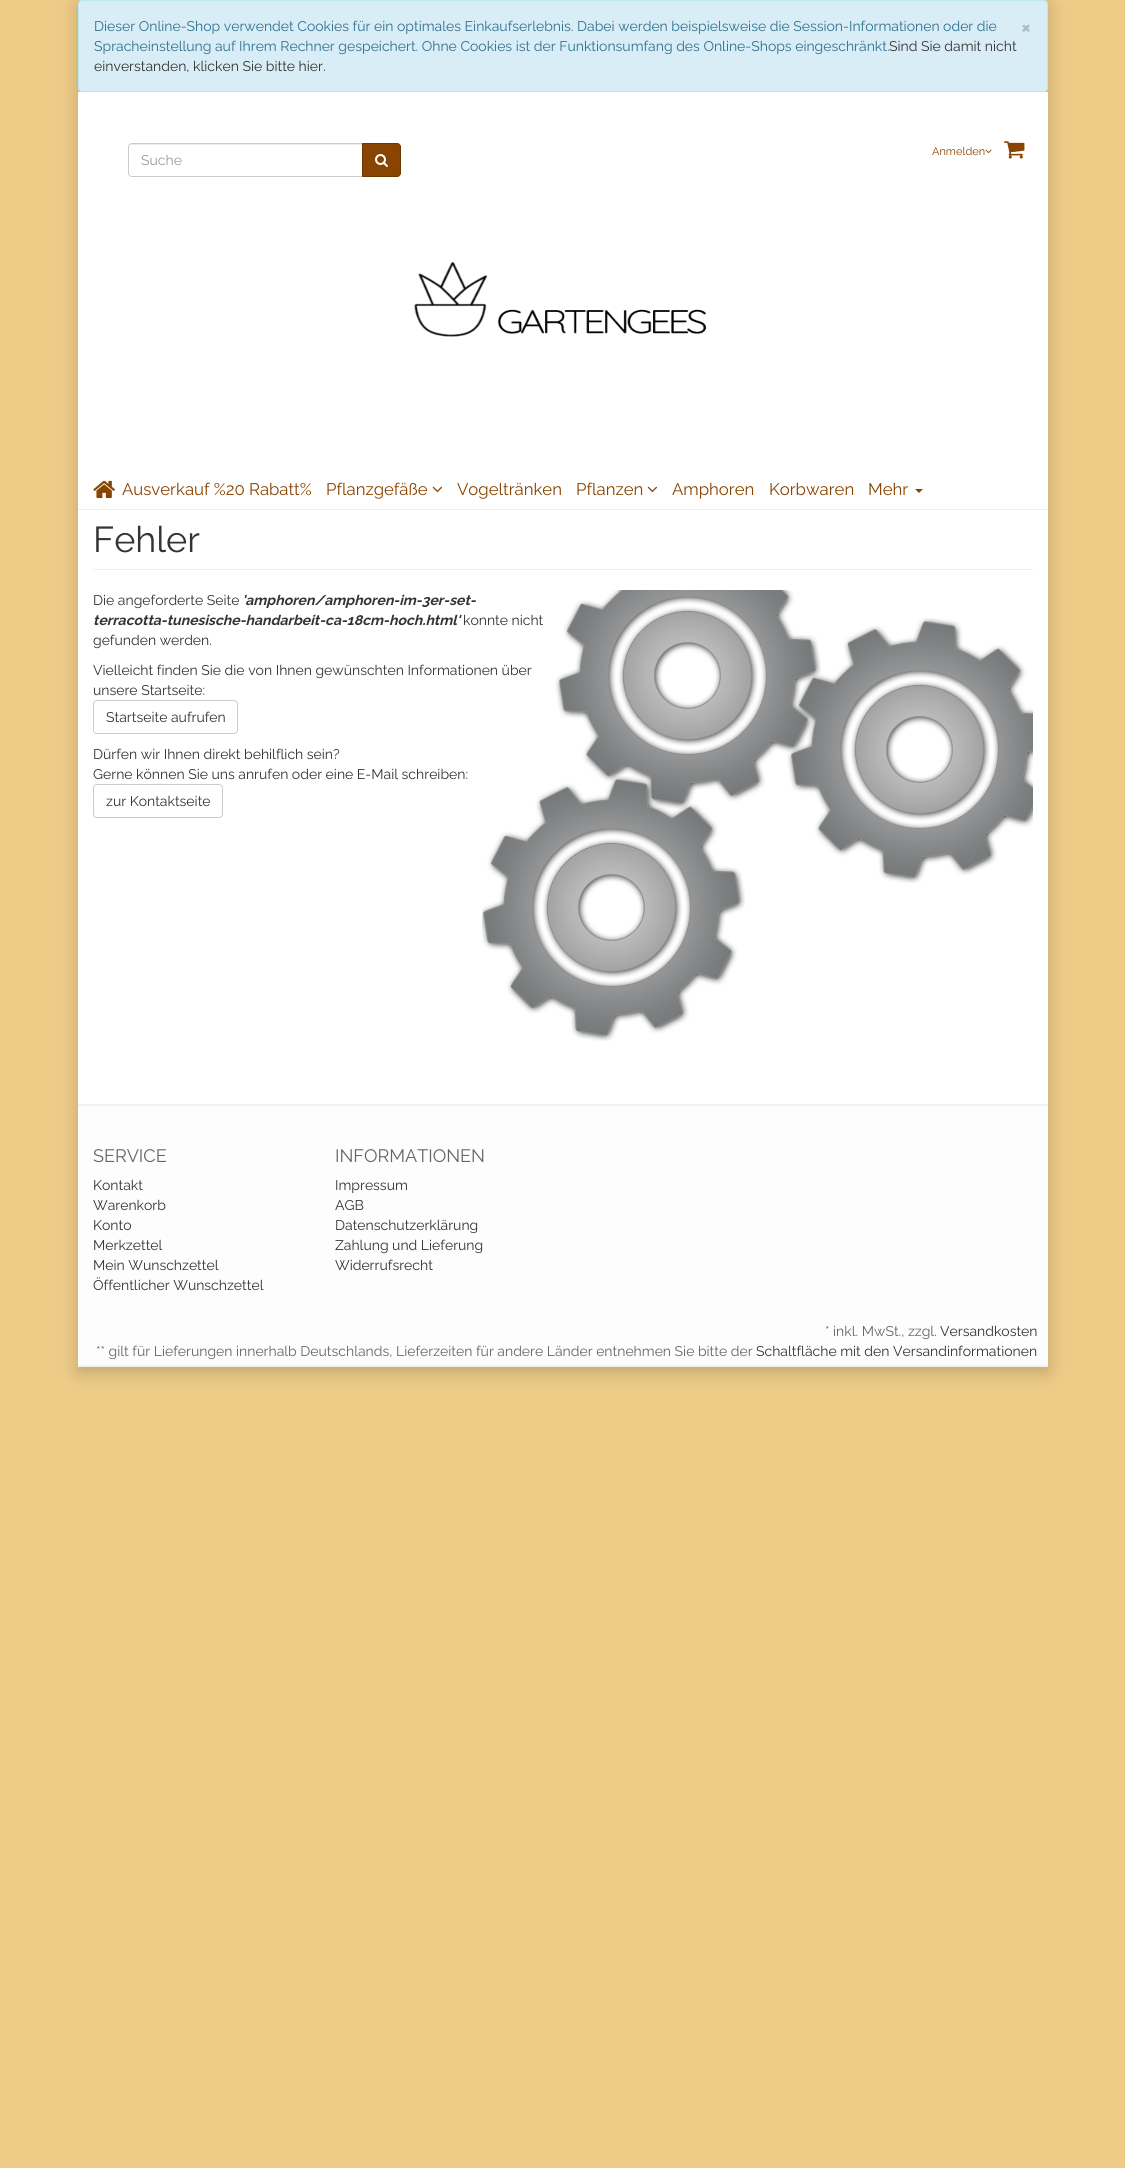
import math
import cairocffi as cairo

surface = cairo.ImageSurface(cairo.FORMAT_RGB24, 1125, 2168)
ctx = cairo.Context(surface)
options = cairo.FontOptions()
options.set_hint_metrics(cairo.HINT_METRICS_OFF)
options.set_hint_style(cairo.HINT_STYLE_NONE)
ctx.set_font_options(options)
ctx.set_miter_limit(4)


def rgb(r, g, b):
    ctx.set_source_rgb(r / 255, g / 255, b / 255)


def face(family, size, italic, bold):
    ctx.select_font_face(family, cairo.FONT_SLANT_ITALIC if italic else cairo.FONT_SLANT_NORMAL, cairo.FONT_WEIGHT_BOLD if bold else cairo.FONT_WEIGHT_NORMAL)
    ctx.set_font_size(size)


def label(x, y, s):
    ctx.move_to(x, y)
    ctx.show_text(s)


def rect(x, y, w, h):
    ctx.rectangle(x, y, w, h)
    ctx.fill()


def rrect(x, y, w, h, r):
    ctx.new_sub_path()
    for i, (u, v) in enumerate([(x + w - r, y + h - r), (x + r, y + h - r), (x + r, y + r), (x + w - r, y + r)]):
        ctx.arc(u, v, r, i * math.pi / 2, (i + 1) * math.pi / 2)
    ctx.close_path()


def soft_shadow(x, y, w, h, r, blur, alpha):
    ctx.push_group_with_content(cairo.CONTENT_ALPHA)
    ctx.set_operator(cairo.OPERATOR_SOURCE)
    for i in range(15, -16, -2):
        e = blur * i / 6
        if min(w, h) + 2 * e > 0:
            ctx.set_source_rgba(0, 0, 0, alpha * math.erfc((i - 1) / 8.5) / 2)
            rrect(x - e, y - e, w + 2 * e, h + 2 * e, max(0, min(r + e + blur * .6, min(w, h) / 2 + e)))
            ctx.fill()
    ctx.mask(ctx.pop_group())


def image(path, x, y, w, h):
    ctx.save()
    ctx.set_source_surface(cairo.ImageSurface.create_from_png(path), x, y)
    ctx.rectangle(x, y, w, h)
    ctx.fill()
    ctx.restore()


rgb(238, 204, 136)
ctx.paint()
rgb(0, 0, 0)
soft_shadow(78, 5, 970, 1367, 0, 10, 0.2)
rgb(217, 237, 247)
rrect(78.5, 0.5, 969, 91, 3.5)
ctx.fill_preserve()
rgb(188, 232, 241)
ctx.set_line_width(1)
ctx.stroke()
face('Raleway', 14, 0, 0)
rgb(49, 112, 143)
label(94, 31, 'Dieser Online-Shop verwendet Cookies für ein optimales Einkaufserlebnis. Dabei werden beispielsweise die Session-Informationen oder die')
face('Raleway', 21, 0, 1)
rgb(174, 190, 198)
label(1021, 34, '×')
face('Raleway', 14, 0, 0)
rgb(49, 112, 143)
label(94, 51, 'Spracheinstellung auf Ihrem Rechner gespeichert. Ohne Cookies ist der Funktionsumfang des Online-Shops eingeschränkt.')
rgb(51, 51, 51)
label(889, 51, 'Sind Sie damit nicht')
label(94, 71, 'einverstanden, klicken Sie bitte hier.')
rgb(255, 255, 255)
rect(78, 92, 970, 417)
face('Raleway', 11, 0, 0)
rgb(136, 68, 0)
label(932, 155, 'Anmelden')
image('image0.png', 985, 149, 7, 5)
image('image1.png', 1004, 141, 21, 18)
rgb(236, 236, 236)
ctx.new_path()
ctx.move_to(132, 145)
ctx.line_to(362, 145)
ctx.line_to(362, 144)
ctx.line_to(132, 144)
ctx.curve_to(130, 144, 129, 146, 129, 148)
ctx.curve_to(129, 146, 130, 145, 132, 145)
ctx.close_path()
ctx.fill()
ctx.new_path()
ctx.move_to(132, 143.5)
ctx.line_to(362.5, 143.5)
ctx.line_to(362.5, 176.5)
ctx.line_to(132, 176.5)
ctx.curve_to(130, 176.5, 128.5, 175, 128.5, 173)
ctx.line_to(128.5, 147)
ctx.curve_to(128.5, 145, 130, 143.5, 132, 143.5)
ctx.close_path()
rgb(204, 204, 204)
ctx.stroke()
face('Raleway', 14, 0, 0)
rgb(153, 153, 153)
label(141, 165, 'Suche')
rgb(136, 68, 0)
ctx.new_path()
ctx.move_to(362.5, 143.5)
ctx.line_to(397, 143.5)
ctx.curve_to(399, 143.5, 400.5, 145, 400.5, 147)
ctx.line_to(400.5, 173)
ctx.curve_to(400.5, 175, 399, 176.5, 397, 176.5)
ctx.line_to(362.5, 176.5)
ctx.close_path()
ctx.fill_preserve()
rgb(111, 55, 0)
ctx.stroke()
image('image2.png', 375, 154, 13, 13)
image('image3.png', 414, 262, 293, 75)
rgb(238, 238, 238)
rect(78, 509, 970, 1)
image('image4.png', 93, 480, 22, 18)
face('Raleway', 16.75, 0, 0)
rgb(136, 68, 0)
label(122, 495, 'Ausverkauf %20 Rabatt%')
label(326, 495, 'Pflanzgefäße')
image('image5.png', 432, 486, 10, 7)
label(457, 495, 'Vogeltränken')
label(576, 495, 'Pflanzen')
image('image5.png', 647, 486, 10, 7)
label(672, 495, 'Amphoren')
label(769, 495, 'Korbwaren')
label(868, 495, 'Mehr')
ctx.new_path()
ctx.move_to(915, 489)
ctx.line_to(923, 489)
ctx.line_to(919, 493)
ctx.close_path()
ctx.fill()
rgb(255, 255, 255)
rect(78, 510, 970, 594)
rgb(238, 238, 238)
rect(93, 569, 940, 1)
face('Raleway', 36, 0, 0)
rgb(51, 51, 51)
label(93, 552, 'Fehler')
face('Raleway', 14, 0, 0)
label(93, 605, 'Die angeforderte Seite')
face('Raleway', 14, 1, 1)
label(242, 605, '\'amphoren/amphoren-im-3er-set-')
label(93, 625, 'terracotta-tunesische-handarbeit-ca-18cm-hoch.html\'')
face('Raleway', 14, 0, 0)
label(463, 625, 'konnte nicht')
label(93, 645, 'gefunden werden.')
label(93, 675, 'Vielleicht finden Sie die von Ihnen gewünschten Informationen über')
label(93, 695, 'unsere Startseite:')
rrect(93.5, 700.5, 144, 33, 3.5)
rgb(204, 204, 204)
ctx.stroke()
rgb(51, 51, 51)
label(106, 722, 'Startseite aufrufen')
label(93, 759, 'Dürfen wir Ihnen direkt behilflich sein?')
label(93, 779, 'Gerne können Sie uns anrufen oder eine E-Mail schreiben:')
rrect(93.5, 784.5, 129, 33, 3.5)
rgb(204, 204, 204)
ctx.stroke()
rgb(51, 51, 51)
label(106, 806, 'zur Kontaktseite')
image('image6.png', 555, 590, 266, 219)
image('image7.png', 787, 618, 246, 265)
image('image8.png', 482, 776, 263, 265)
rgb(253, 253, 253)
rect(78, 1106, 970, 259)
rgb(242, 242, 242)
rect(78, 1104, 970, 2)
rect(78, 1365, 970, 2)
face('Raleway', 18, 0, 0)
rgb(102, 102, 102)
label(93, 1162, 'SERVICE')
face('Raleway', 14, 0, 0)
rgb(51, 51, 51)
label(93, 1190, 'Kontakt')
label(93, 1210, 'Warenkorb')
label(93, 1230, 'Konto')
label(93, 1250, 'Merkzettel')
label(93, 1270, 'Mein Wunschzettel')
label(93, 1290, 'Öffentlicher Wunschzettel')
face('Raleway', 18, 0, 0)
rgb(102, 102, 102)
label(335, 1162, 'INFORMATIONEN')
face('Raleway', 14, 0, 0)
rgb(51, 51, 51)
label(335, 1190, 'Impressum')
label(335, 1210, 'AGB')
label(335, 1230, 'Datenschutzerklärung')
label(335, 1250, 'Zahlung und Lieferung')
label(335, 1270, 'Widerrufsrecht')
rgb(102, 102, 102)
label(825, 1336, '* inkl. MwSt., zzgl.')
rgb(51, 51, 51)
label(940, 1336, 'Versandkosten')
rgb(102, 102, 102)
label(96, 1356, '** gilt für Lieferungen innerhalb Deutschlands, Lieferzeiten für andere Länder entnehmen Sie bitte der')
rgb(51, 51, 51)
label(756, 1356, 'Schaltfläche mit den Versandinformationen')
surface.write_to_png('render.png')
